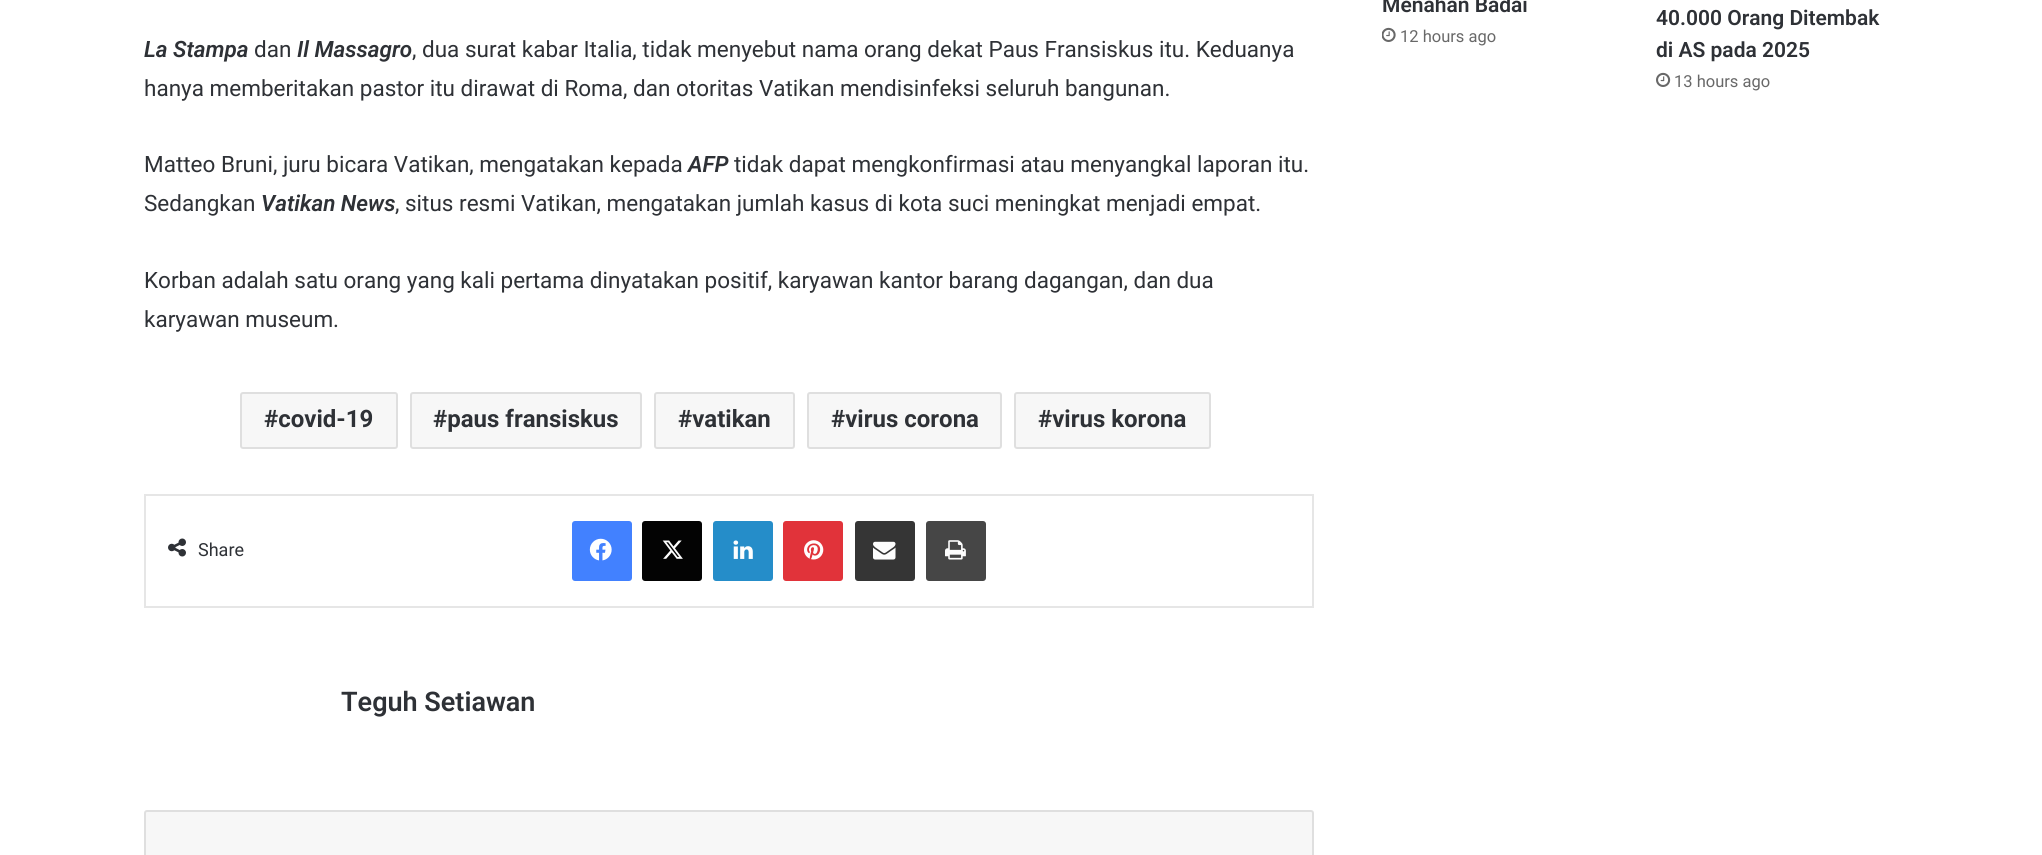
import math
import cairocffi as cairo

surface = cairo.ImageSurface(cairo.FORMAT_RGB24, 2042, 855)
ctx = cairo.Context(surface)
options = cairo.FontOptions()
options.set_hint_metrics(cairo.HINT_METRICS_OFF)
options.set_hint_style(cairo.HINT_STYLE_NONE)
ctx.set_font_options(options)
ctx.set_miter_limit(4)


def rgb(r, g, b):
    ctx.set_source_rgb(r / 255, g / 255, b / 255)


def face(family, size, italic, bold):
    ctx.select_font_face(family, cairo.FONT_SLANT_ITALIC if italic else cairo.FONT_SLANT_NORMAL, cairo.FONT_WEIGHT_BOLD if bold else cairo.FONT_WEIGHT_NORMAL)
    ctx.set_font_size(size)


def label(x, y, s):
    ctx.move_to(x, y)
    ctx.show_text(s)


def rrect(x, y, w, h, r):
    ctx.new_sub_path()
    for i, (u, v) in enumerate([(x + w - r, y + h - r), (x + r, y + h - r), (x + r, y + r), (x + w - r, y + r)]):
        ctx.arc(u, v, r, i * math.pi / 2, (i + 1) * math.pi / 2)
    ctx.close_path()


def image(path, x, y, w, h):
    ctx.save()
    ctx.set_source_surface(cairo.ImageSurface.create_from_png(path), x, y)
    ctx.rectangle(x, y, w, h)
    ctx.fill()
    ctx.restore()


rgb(255, 255, 255)
ctx.paint()
face('Roboto SemiBold', 22.5, 1, 0)
rgb(46, 49, 54)
label(144, 57, 'La Stampa')
face('Roboto', 22.5, 0, 0)
label(254, 57, 'dan')
face('Roboto SemiBold', 22.5, 1, 0)
label(297, 57, 'Il Massagro')
face('Roboto', 22.5, 0, 0)
label(412, 57, ', dua surat kabar Italia, tidak menyebut nama orang dekat Paus Fransiskus itu. Keduanya')
label(144, 96, 'hanya memberitakan pastor itu dirawat di Roma, dan otoritas Vatikan mendisinfeksi seluruh bangunan.')
label(144, 172, 'Matteo Bruni, juru bicara Vatikan, mengatakan kepada')
face('Roboto SemiBold', 22.5, 1, 0)
label(688, 172, 'AFP')
face('Roboto', 22.5, 0, 0)
label(734, 172, 'tidak dapat mengkonfirmasi atau menyangkal laporan itu.')
label(144, 211, 'Sedangkan')
face('Roboto SemiBold', 22.5, 1, 0)
label(261, 211, 'Vatikan News')
face('Roboto', 22.5, 0, 0)
label(395, 211, ', situs resmi Vatikan, mengatakan jumlah kasus di kota suci meningkat menjadi empat.')
label(144, 288, 'Korban adalah satu orang yang kali pertama dinyatakan positif, karyawan kantor barang dagangan, dan dua')
label(144, 327, 'karyawan museum.')
rgb(247, 247, 247)
rrect(240, 392, 158, 57, 3)
ctx.fill()
rrect(241, 393, 156, 55, 2)
ctx.set_source_rgba(0.012, 0.012, 0.012, 0.1)
ctx.stroke()
face('Roboto', 24, 0, 1)
rgb(46, 49, 54)
label(264, 427, '#covid-19')
rgb(247, 247, 247)
rrect(410, 392, 232, 57, 3)
ctx.fill()
rrect(411, 393, 230, 55, 2)
ctx.set_source_rgba(0.012, 0.012, 0.012, 0.1)
ctx.stroke()
rgb(46, 49, 54)
label(433, 427, '#paus fransiskus')
rgb(247, 247, 247)
rrect(654, 392, 141, 57, 3)
ctx.fill()
rrect(655, 393, 139, 55, 2)
ctx.set_source_rgba(0.012, 0.012, 0.012, 0.1)
ctx.stroke()
rgb(46, 49, 54)
label(678, 427, '#vatikan')
rgb(247, 247, 247)
rrect(807, 392, 195, 57, 3)
ctx.fill()
rrect(808, 393, 193, 55, 2)
ctx.set_source_rgba(0.012, 0.012, 0.012, 0.1)
ctx.stroke()
rgb(46, 49, 54)
label(831, 427, '#virus corona')
rgb(247, 247, 247)
rrect(1014, 392, 197, 57, 3)
ctx.fill()
rrect(1015, 393, 195, 55, 2)
ctx.set_source_rgba(0.012, 0.012, 0.012, 0.1)
ctx.stroke()
rgb(46, 49, 54)
label(1038, 427, '#virus korona')
ctx.rectangle(145, 495, 1168, 112)
rgb(230, 230, 230)
ctx.stroke()
image('image0.png', 168, 538, 18, 19)
face('Roboto', 18, 0, 0)
rgb(46, 49, 54)
label(198, 556, 'Share')
rgb(66, 129, 255)
rrect(572, 521, 60, 60, 3)
ctx.fill()
image('image1.png', 589, 538, 23, 23)
rgb(3, 3, 3)
rrect(642, 521, 60, 60, 3)
ctx.fill()
image('image2.png', 662, 540, 21, 19)
rgb(37, 141, 201)
rrect(713, 521, 60, 60, 3)
ctx.fill()
image('image3.png', 733, 540, 20, 19)
rgb(225, 51, 58)
rrect(783, 521, 60, 60, 3)
ctx.fill()
image('image4.png', 804, 540, 20, 20)
rgb(53, 53, 53)
rrect(855, 521, 60, 60, 3)
ctx.fill()
image('image5.png', 873, 541, 23, 19)
rgb(70, 70, 70)
rrect(926, 521, 60, 60, 3)
ctx.fill()
image('image6.png', 945, 540, 21, 20)
face('Roboto SemiBold', 27, 0, 0)
rgb(46, 49, 54)
label(341, 711, 'Teguh Setiawan')
rgb(247, 247, 247)
rrect(144, 810, 1170, 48, 3)
ctx.fill()
rrect(145, 811, 1168, 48, 2)
ctx.set_source_rgba(0.012, 0.012, 0.012, 0.1)
ctx.stroke()
face('Roboto SemiBold', 21, 0, 0)
rgb(46, 49, 54)
label(1382, 12, 'Menahan Badai')
image('image7.png', 1382, 27, 14, 15)
face('Roboto', 16.5, 0, 0)
rgb(104, 104, 104)
label(1400, 42, '12 hours ago')
face('Roboto SemiBold', 21, 0, 0)
rgb(46, 49, 54)
label(1656, 25, '40.000 Orang Ditembak')
label(1656, 57, 'di AS pada 2025')
image('image8.png', 1656, 72, 15, 15)
face('Roboto', 16.5, 0, 0)
rgb(104, 104, 104)
label(1674, 87, '13 hours ago')
surface.write_to_png('render.png')
